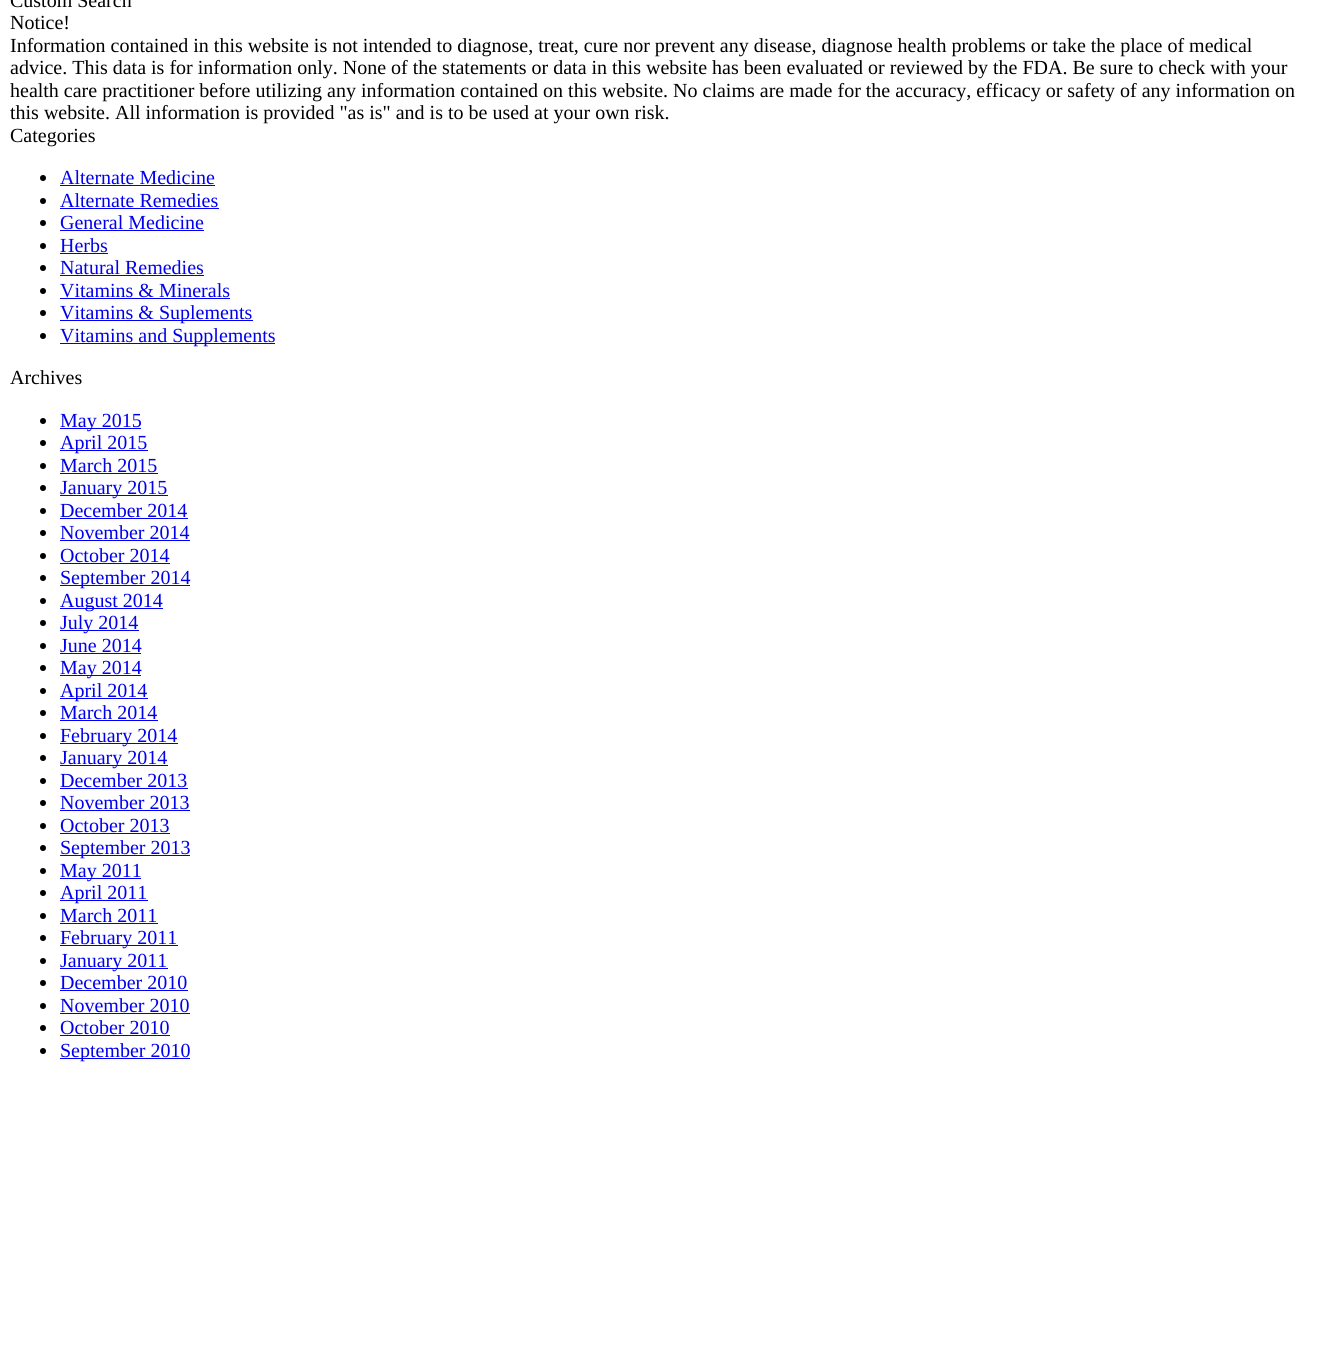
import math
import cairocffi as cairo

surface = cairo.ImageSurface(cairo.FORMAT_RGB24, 1321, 1358)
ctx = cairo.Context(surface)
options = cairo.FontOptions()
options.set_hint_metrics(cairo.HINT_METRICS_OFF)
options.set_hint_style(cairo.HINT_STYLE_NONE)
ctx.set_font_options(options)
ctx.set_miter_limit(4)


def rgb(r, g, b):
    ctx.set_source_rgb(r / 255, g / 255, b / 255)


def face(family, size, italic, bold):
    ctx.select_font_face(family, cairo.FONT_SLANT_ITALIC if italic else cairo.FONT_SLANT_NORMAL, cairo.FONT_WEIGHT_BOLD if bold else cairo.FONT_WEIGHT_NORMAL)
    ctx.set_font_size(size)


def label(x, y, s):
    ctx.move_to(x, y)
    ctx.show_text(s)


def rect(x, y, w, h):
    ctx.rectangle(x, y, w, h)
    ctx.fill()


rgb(255, 255, 255)
ctx.paint()
face('Liberation Serif', 20, 0, 0)
rgb(0, 0, 0)
label(10, 7, 'Custom Search')
label(10, 29, 'Notice!')
label(10, 52, 'Information contained in this website is not intended to diagnose, treat, cure nor prevent any disease, diagnose health problems or take the place of medical')
label(10, 74, 'advice. This data is for information only. None of the statements or data in this website has been evaluated or reviewed by the FDA. Be sure to check with your')
label(10, 97, 'health care practitioner before utilizing any information contained on this website. No claims are made for the accuracy, efficacy or safety of any information on')
label(10, 119, 'this website. All information is provided "as is" and is to be used at your own risk.')
label(10, 142, 'Categories')
ctx.new_path()
ctx.arc(43, 178, 3, 0, 2 * math.pi)
ctx.fill()
rgb(0, 0, 238)
label(60, 184, 'Alternate Medicine')
rect(60, 185, 155, 1)
rgb(0, 0, 0)
ctx.new_path()
ctx.arc(43, 201, 3, 0, 2 * math.pi)
ctx.fill()
rgb(0, 0, 238)
label(60, 207, 'Alternate Remedies')
rect(60, 208, 159, 1)
rgb(0, 0, 0)
ctx.new_path()
ctx.arc(43, 223, 3, 0, 2 * math.pi)
ctx.fill()
rgb(0, 0, 238)
label(60, 229, 'General Medicine')
rect(60, 230, 144, 1)
rgb(0, 0, 0)
ctx.new_path()
ctx.arc(43, 246, 3, 0, 2 * math.pi)
ctx.fill()
rgb(0, 0, 238)
label(60, 252, 'Herbs')
rect(60, 253, 48, 1)
rgb(0, 0, 0)
ctx.new_path()
ctx.arc(43, 268, 3, 0, 2 * math.pi)
ctx.fill()
rgb(0, 0, 238)
label(60, 274, 'Natural Remedies')
rect(60, 275, 144, 1)
rgb(0, 0, 0)
ctx.new_path()
ctx.arc(43, 291, 3, 0, 2 * math.pi)
ctx.fill()
rgb(0, 0, 238)
label(60, 297, 'Vitamins & Minerals')
rect(60, 298, 170, 1)
rgb(0, 0, 0)
ctx.new_path()
ctx.arc(43, 313, 3, 0, 2 * math.pi)
ctx.fill()
rgb(0, 0, 238)
rect(60, 320, 193, 1)
label(60, 319, 'Vitamins & Suplements')
rgb(0, 0, 0)
ctx.new_path()
ctx.arc(43, 336, 3, 0, 2 * math.pi)
ctx.fill()
rgb(0, 0, 238)
rect(60, 343, 215, 1)
label(60, 342, 'Vitamins and Supplements')
rgb(0, 0, 0)
label(10, 384, 'Archives')
ctx.new_path()
ctx.arc(43, 421, 3, 0, 2 * math.pi)
ctx.fill()
rgb(0, 0, 238)
rect(60, 428, 81, 1)
label(60, 427, 'May 2015')
rgb(0, 0, 0)
ctx.new_path()
ctx.arc(43, 443, 3, 0, 2 * math.pi)
ctx.fill()
rgb(0, 0, 238)
rect(60, 450, 88, 1)
label(60, 449, 'April 2015')
rgb(0, 0, 0)
ctx.new_path()
ctx.arc(43, 466, 3, 0, 2 * math.pi)
ctx.fill()
rgb(0, 0, 238)
label(60, 472, 'March 2015')
rect(60, 473, 98, 1)
rgb(0, 0, 0)
ctx.new_path()
ctx.arc(43, 488, 3, 0, 2 * math.pi)
ctx.fill()
rgb(0, 0, 238)
rect(60, 495, 108, 1)
label(60, 494, 'January 2015')
rgb(0, 0, 0)
ctx.new_path()
ctx.arc(43, 511, 3, 0, 2 * math.pi)
ctx.fill()
rgb(0, 0, 238)
label(60, 517, 'December 2014')
rect(60, 518, 128, 1)
rgb(0, 0, 0)
ctx.new_path()
ctx.arc(43, 533, 3, 0, 2 * math.pi)
ctx.fill()
rgb(0, 0, 238)
label(60, 539, 'November 2014')
rect(60, 540, 130, 1)
rgb(0, 0, 0)
ctx.new_path()
ctx.arc(43, 556, 3, 0, 2 * math.pi)
ctx.fill()
rgb(0, 0, 238)
label(60, 562, 'October 2014')
rect(60, 563, 110, 1)
rgb(0, 0, 0)
ctx.new_path()
ctx.arc(43, 578, 3, 0, 2 * math.pi)
ctx.fill()
rgb(0, 0, 238)
rect(60, 585, 130, 1)
label(60, 584, 'September 2014')
rgb(0, 0, 0)
ctx.new_path()
ctx.arc(43, 601, 3, 0, 2 * math.pi)
ctx.fill()
rgb(0, 0, 238)
rect(60, 608, 103, 1)
label(60, 607, 'August 2014')
rgb(0, 0, 0)
ctx.new_path()
ctx.arc(43, 623, 3, 0, 2 * math.pi)
ctx.fill()
rgb(0, 0, 238)
rect(60, 630, 79, 1)
label(60, 629, 'July 2014')
rgb(0, 0, 0)
ctx.new_path()
ctx.arc(43, 646, 3, 0, 2 * math.pi)
ctx.fill()
rgb(0, 0, 238)
label(60, 652, 'June 2014')
rect(60, 653, 81, 1)
rgb(0, 0, 0)
ctx.new_path()
ctx.arc(43, 668, 3, 0, 2 * math.pi)
ctx.fill()
rgb(0, 0, 238)
rect(60, 675, 81, 1)
label(60, 674, 'May 2014')
rgb(0, 0, 0)
ctx.new_path()
ctx.arc(43, 691, 3, 0, 2 * math.pi)
ctx.fill()
rgb(0, 0, 238)
rect(60, 698, 88, 1)
label(60, 697, 'April 2014')
rgb(0, 0, 0)
ctx.new_path()
ctx.arc(43, 713, 3, 0, 2 * math.pi)
ctx.fill()
rgb(0, 0, 238)
label(60, 719, 'March 2014')
rect(60, 720, 98, 1)
rgb(0, 0, 0)
ctx.new_path()
ctx.arc(43, 736, 3, 0, 2 * math.pi)
ctx.fill()
rgb(0, 0, 238)
rect(60, 743, 118, 1)
label(60, 742, 'February 2014')
rgb(0, 0, 0)
ctx.new_path()
ctx.arc(43, 758, 3, 0, 2 * math.pi)
ctx.fill()
rgb(0, 0, 238)
rect(60, 765, 108, 1)
label(60, 764, 'January 2014')
rgb(0, 0, 0)
ctx.new_path()
ctx.arc(43, 781, 3, 0, 2 * math.pi)
ctx.fill()
rgb(0, 0, 238)
label(60, 787, 'December 2013')
rect(60, 788, 128, 1)
rgb(0, 0, 0)
ctx.new_path()
ctx.arc(43, 803, 3, 0, 2 * math.pi)
ctx.fill()
rgb(0, 0, 238)
label(60, 809, 'November 2013')
rect(60, 810, 130, 1)
rgb(0, 0, 0)
ctx.new_path()
ctx.arc(43, 826, 3, 0, 2 * math.pi)
ctx.fill()
rgb(0, 0, 238)
label(60, 832, 'October 2013')
rect(60, 833, 110, 1)
rgb(0, 0, 0)
ctx.new_path()
ctx.arc(43, 848, 3, 0, 2 * math.pi)
ctx.fill()
rgb(0, 0, 238)
rect(60, 855, 130, 1)
label(60, 854, 'September 2013')
rgb(0, 0, 0)
ctx.new_path()
ctx.arc(43, 871, 3, 0, 2 * math.pi)
ctx.fill()
rgb(0, 0, 238)
rect(60, 878, 81, 1)
label(60, 877, 'May 2011')
rgb(0, 0, 0)
ctx.new_path()
ctx.arc(43, 893, 3, 0, 2 * math.pi)
ctx.fill()
rgb(0, 0, 238)
rect(60, 900, 88, 1)
label(60, 899, 'April 2011')
rgb(0, 0, 0)
ctx.new_path()
ctx.arc(43, 916, 3, 0, 2 * math.pi)
ctx.fill()
rgb(0, 0, 238)
label(60, 922, 'March 2011')
rect(60, 923, 98, 1)
rgb(0, 0, 0)
ctx.new_path()
ctx.arc(43, 938, 3, 0, 2 * math.pi)
ctx.fill()
rgb(0, 0, 238)
rect(60, 945, 118, 1)
label(60, 944, 'February 2011')
rgb(0, 0, 0)
ctx.new_path()
ctx.arc(43, 961, 3, 0, 2 * math.pi)
ctx.fill()
rgb(0, 0, 238)
rect(60, 968, 108, 1)
label(60, 967, 'January 2011')
rgb(0, 0, 0)
ctx.new_path()
ctx.arc(43, 983, 3, 0, 2 * math.pi)
ctx.fill()
rgb(0, 0, 238)
label(60, 989, 'December 2010')
rect(60, 990, 128, 1)
rgb(0, 0, 0)
ctx.new_path()
ctx.arc(43, 1006, 3, 0, 2 * math.pi)
ctx.fill()
rgb(0, 0, 238)
label(60, 1012, 'November 2010')
rect(60, 1013, 130, 1)
rgb(0, 0, 0)
ctx.new_path()
ctx.arc(43, 1028, 3, 0, 2 * math.pi)
ctx.fill()
rgb(0, 0, 238)
label(60, 1034, 'October 2010')
rect(60, 1035, 110, 1)
rgb(0, 0, 0)
ctx.new_path()
ctx.arc(43, 1051, 3, 0, 2 * math.pi)
ctx.fill()
rgb(0, 0, 238)
rect(60, 1058, 130, 1)
label(60, 1057, 'September 2010')
surface.write_to_png('render.png')
